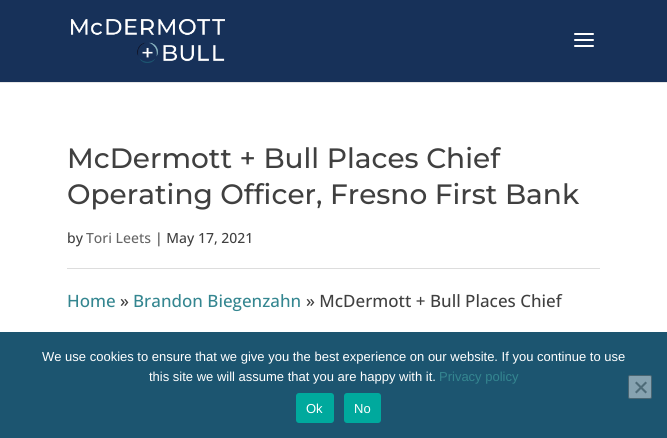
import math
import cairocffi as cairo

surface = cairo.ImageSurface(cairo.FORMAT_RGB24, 667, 438)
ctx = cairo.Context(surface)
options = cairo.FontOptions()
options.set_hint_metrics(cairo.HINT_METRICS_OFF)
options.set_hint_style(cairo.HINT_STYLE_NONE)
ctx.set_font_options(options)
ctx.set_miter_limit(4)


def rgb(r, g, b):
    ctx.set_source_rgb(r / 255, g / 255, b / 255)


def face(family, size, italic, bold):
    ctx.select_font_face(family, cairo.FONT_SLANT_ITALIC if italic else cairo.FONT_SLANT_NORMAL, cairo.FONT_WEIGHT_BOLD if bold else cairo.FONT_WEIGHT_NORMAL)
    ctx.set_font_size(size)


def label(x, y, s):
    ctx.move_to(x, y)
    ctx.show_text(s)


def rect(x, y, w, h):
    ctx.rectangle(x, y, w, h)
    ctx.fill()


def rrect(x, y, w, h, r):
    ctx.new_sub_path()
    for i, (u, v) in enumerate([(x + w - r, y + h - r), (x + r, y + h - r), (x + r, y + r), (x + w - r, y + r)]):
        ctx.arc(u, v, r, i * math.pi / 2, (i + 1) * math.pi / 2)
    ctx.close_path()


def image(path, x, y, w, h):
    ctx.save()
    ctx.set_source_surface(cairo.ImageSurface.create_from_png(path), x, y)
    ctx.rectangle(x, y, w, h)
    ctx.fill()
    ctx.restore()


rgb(255, 255, 255)
ctx.paint()
rgb(230, 230, 230)
rect(0, 82, 667, 1)
rgb(23, 49, 89)
rect(0, 0, 667, 82)
image('image0.png', 71, 19, 154, 44)
image('image1.png', 574, 33, 20, 14)
face('Montserrat Thin', 28, 0, 0)
rgb(64, 64, 64)
label(67, 168, 'McDermott + Bull Places Chief')
label(67, 204, 'Operating Officer, Fresno First Bank')
face('Open Sans Medium', 14, 0, 0)
label(67, 243, 'by')
rgb(102, 102, 102)
label(86, 243, 'Tori Leets')
rgb(64, 64, 64)
label(155, 243, '| May 17, 2021')
rgb(221, 221, 221)
rect(67, 268, 533, 1)
face('Open Sans Medium', 17, 0, 0)
rgb(52, 134, 144)
label(67, 307, 'Home')
rgb(64, 64, 64)
label(120, 307, '»')
rgb(52, 134, 144)
label(133, 307, 'Brandon Biegenzahn')
rgb(64, 64, 64)
label(306, 307, '» McDermott + Bull Places Chief')
rgb(28, 85, 112)
rect(0, 332, 667, 106)
face('Liberation Sans', 13, 0, 0)
rgb(255, 255, 255)
label(42, 361, 'We use cookies to ensure that we give you the best experience on our website. If you continue to use')
label(149, 381, 'this site we will assume that you are happy with it.')
rgb(52, 134, 144)
label(439, 381, 'Privacy policy')
rgb(134, 162, 176)
rrect(628.5, 375.5, 23, 23, 1.5)
ctx.fill_preserve()
rgb(73, 102, 115)
ctx.set_line_width(1)
ctx.stroke()
rgb(78, 107, 120)
ctx.new_path()
ctx.move_to(645.5, 381.5)
ctx.line_to(647, 383)
ctx.line_to(636.5, 393.5)
ctx.line_to(635, 392)
ctx.close_path()
ctx.fill()
ctx.new_path()
ctx.move_to(635, 383)
ctx.line_to(636.5, 381.5)
ctx.line_to(647, 392)
ctx.line_to(645.5, 393.5)
ctx.close_path()
ctx.fill()
rgb(0, 169, 157)
rrect(296, 393, 38, 30, 3)
ctx.fill()
rgb(255, 255, 255)
label(306, 413, 'Ok')
rgb(0, 169, 157)
rrect(344, 393, 37, 30, 3)
ctx.fill()
rgb(255, 255, 255)
label(354, 413, 'No')
surface.write_to_png('render.png')
